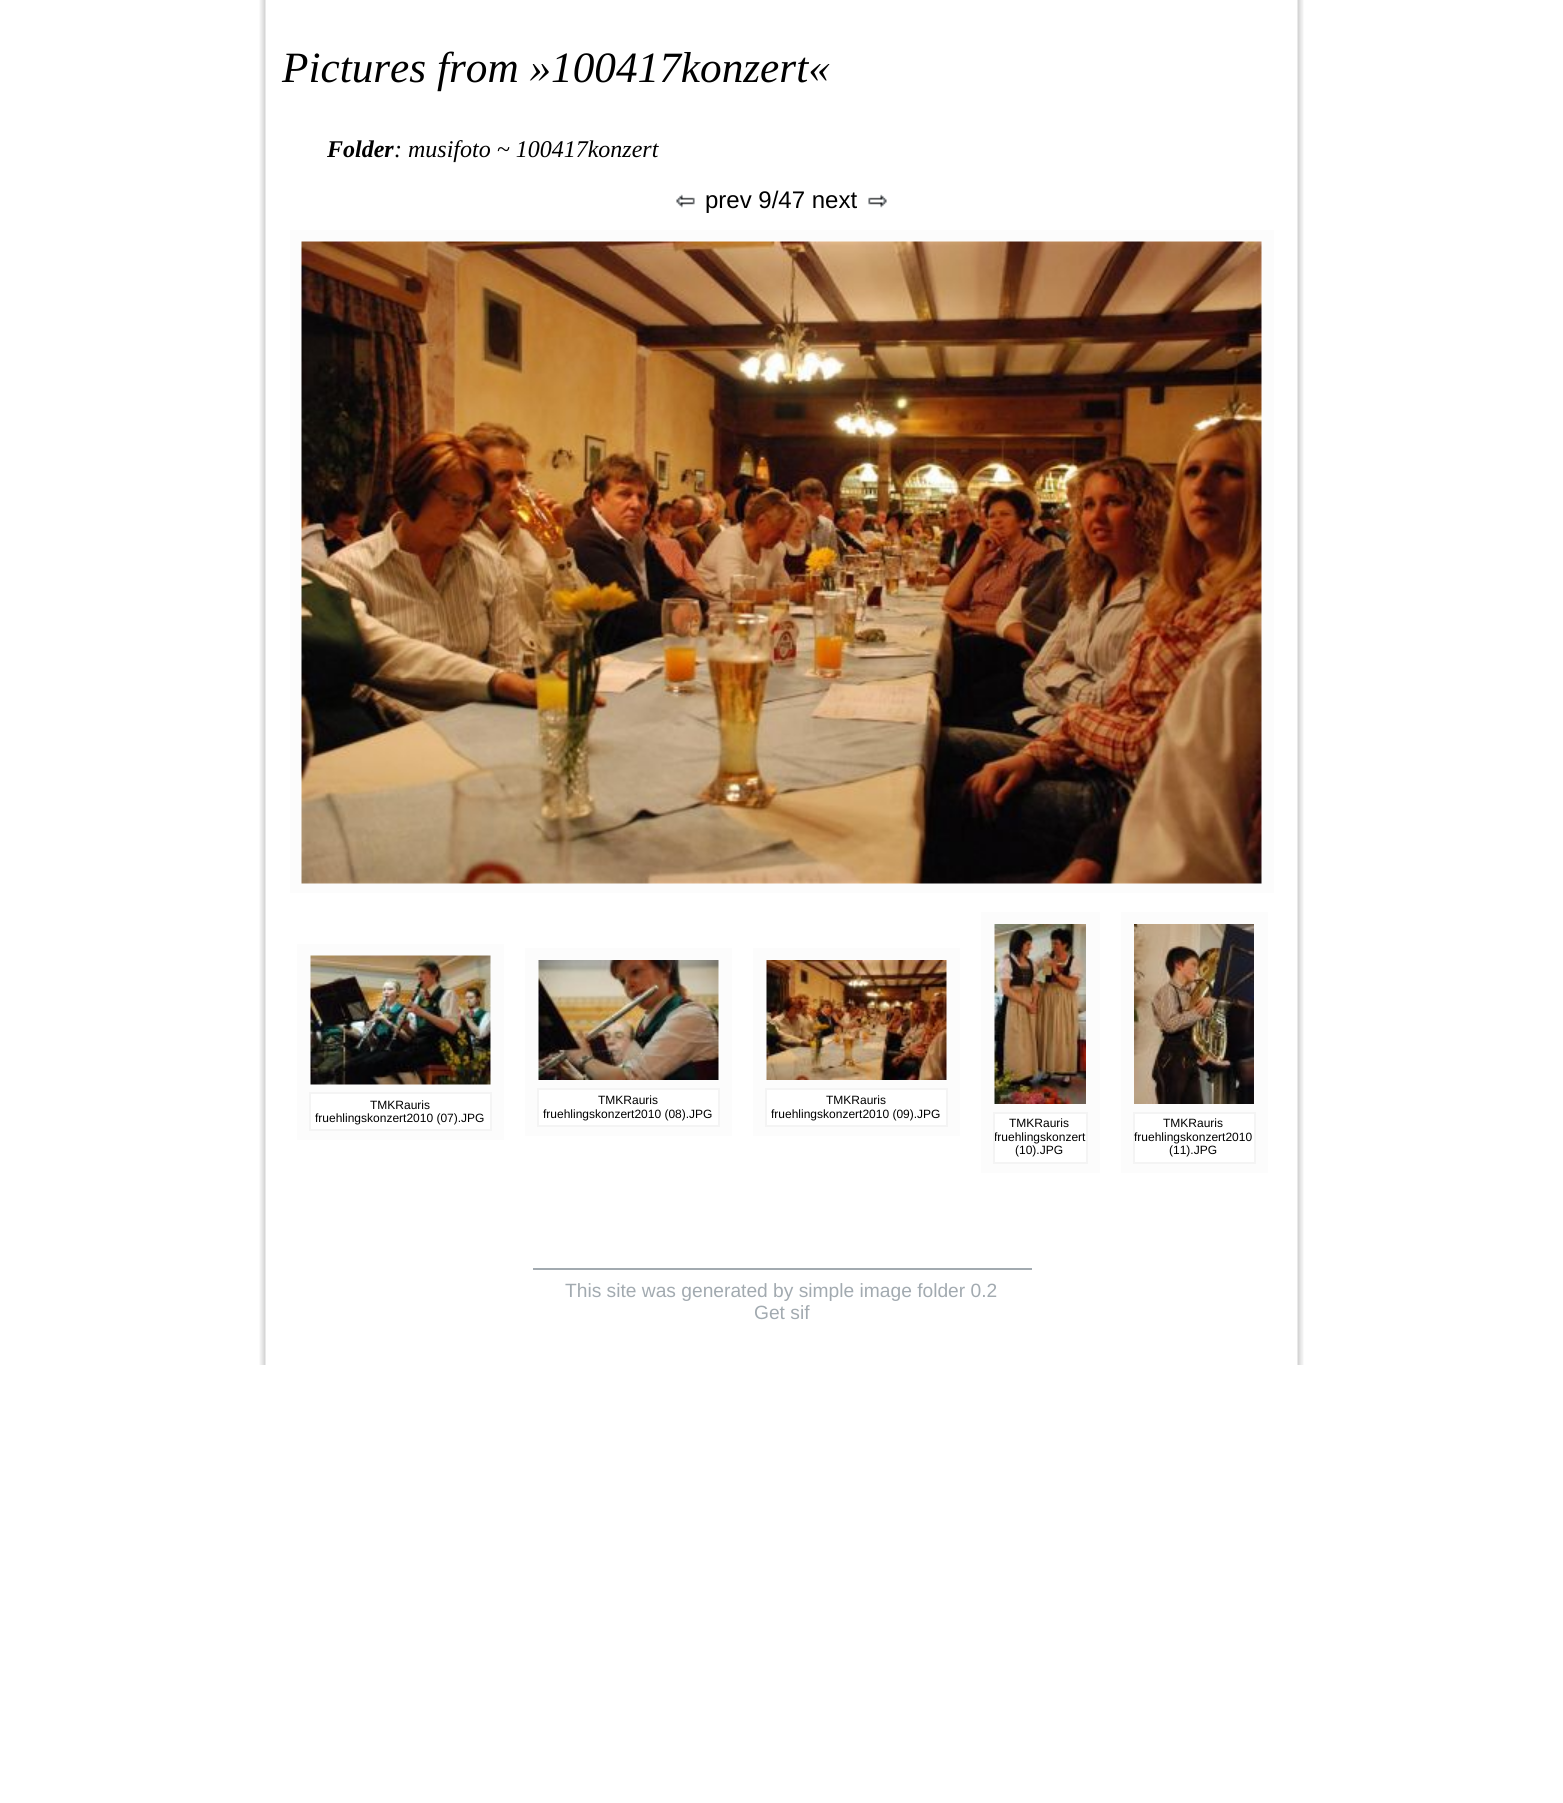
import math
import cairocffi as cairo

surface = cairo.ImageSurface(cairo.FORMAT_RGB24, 1563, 1803)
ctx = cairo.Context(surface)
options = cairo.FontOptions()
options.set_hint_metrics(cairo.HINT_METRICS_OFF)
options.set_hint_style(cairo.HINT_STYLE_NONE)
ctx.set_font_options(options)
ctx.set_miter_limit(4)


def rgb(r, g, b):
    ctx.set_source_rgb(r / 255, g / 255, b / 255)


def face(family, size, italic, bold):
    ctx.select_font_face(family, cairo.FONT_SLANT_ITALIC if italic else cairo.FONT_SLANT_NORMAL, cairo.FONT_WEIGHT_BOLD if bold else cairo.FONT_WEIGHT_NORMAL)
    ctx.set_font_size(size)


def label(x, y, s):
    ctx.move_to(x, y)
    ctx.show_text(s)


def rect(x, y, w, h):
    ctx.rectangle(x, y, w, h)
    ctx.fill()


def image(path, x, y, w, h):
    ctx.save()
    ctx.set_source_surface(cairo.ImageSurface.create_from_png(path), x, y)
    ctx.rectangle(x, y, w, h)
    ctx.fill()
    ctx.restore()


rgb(255, 255, 255)
ctx.paint()
image('image0.png', 259, 0, 7, 1365)
face('Liberation Serif', 43.25, 1, 0)
rgb(0, 0, 0)
label(282, 82, 'Pictures from »100417konzert«')
face('Liberation Serif', 24, 1, 1)
label(327, 157, 'Folder')
face('Liberation Serif', 24, 1, 0)
label(394, 157, ': musifoto ~ 100417konzert')
image('image1.png', 676, 194, 19, 14)
face('Liberation Sans', 24, 0, 0)
label(705, 208, 'prev 9/47 next')
image('image2.png', 868, 194, 19, 14)
rgb(252, 252, 252)
rect(290, 230, 984, 663)
image('image3.png', 301, 241, 961, 643)
rect(297, 944, 207, 196)
image('image4.png', 310, 955, 181, 130)
rgb(255, 255, 255)
ctx.rectangle(310, 1093, 181, 37)
ctx.fill_preserve()
rgb(244, 244, 244)
ctx.stroke()
face('Liberation Sans', 12, 0, 0)
rgb(0, 0, 0)
label(370, 1109, 'TMKRauris')
label(315, 1122, 'fruehlingskonzert2010 (07).JPG')
rgb(252, 252, 252)
rect(525, 948, 207, 188)
image('image5.png', 538, 960, 181, 120)
rgb(255, 255, 255)
ctx.rectangle(538, 1089, 181, 37)
ctx.fill_preserve()
rgb(244, 244, 244)
ctx.stroke()
rgb(0, 0, 0)
label(598, 1104, 'TMKRauris')
label(543, 1118, 'fruehlingskonzert2010 (08).JPG')
rgb(252, 252, 252)
rect(753, 948, 207, 188)
image('image6.png', 766, 960, 181, 120)
rgb(255, 255, 255)
ctx.rectangle(766, 1089, 181, 37)
ctx.fill_preserve()
rgb(244, 244, 244)
ctx.stroke()
rgb(0, 0, 0)
label(826, 1104, 'TMKRauris')
label(771, 1118, 'fruehlingskonzert2010 (09).JPG')
rgb(252, 252, 252)
rect(981, 912, 119, 261)
image('image7.png', 994, 924, 92, 180)
rgb(255, 255, 255)
ctx.rectangle(994, 1113, 93, 50)
ctx.fill_preserve()
rgb(244, 244, 244)
ctx.stroke()
rgb(0, 0, 0)
label(1009, 1127, 'TMKRauris')
ctx.save()
ctx.rectangle(995, 1113, 91, 50)
ctx.clip()
label(994, 1141, 'fruehlingskonzert')
ctx.restore()
label(1015, 1154, '(10).JPG')
rgb(252, 252, 252)
rect(1121, 912, 147, 261)
image('image8.png', 1134, 924, 120, 180)
rgb(255, 255, 255)
ctx.rectangle(1134, 1113, 121, 50)
ctx.fill_preserve()
rgb(244, 244, 244)
ctx.stroke()
rgb(0, 0, 0)
label(1163, 1127, 'TMKRauris')
label(1134, 1141, 'fruehlingskonzert2010')
label(1169, 1154, '(11).JPG')
rgb(162, 170, 176)
rect(533, 1268, 499, 2)
face('Liberation Sans', 19.2, 0, 0)
label(565, 1297, 'This site was generated by simple image folder 0.2')
label(754, 1319, 'Get sif')
image('image9.png', 1297, 0, 7, 1365)
surface.write_to_png('render.png')
